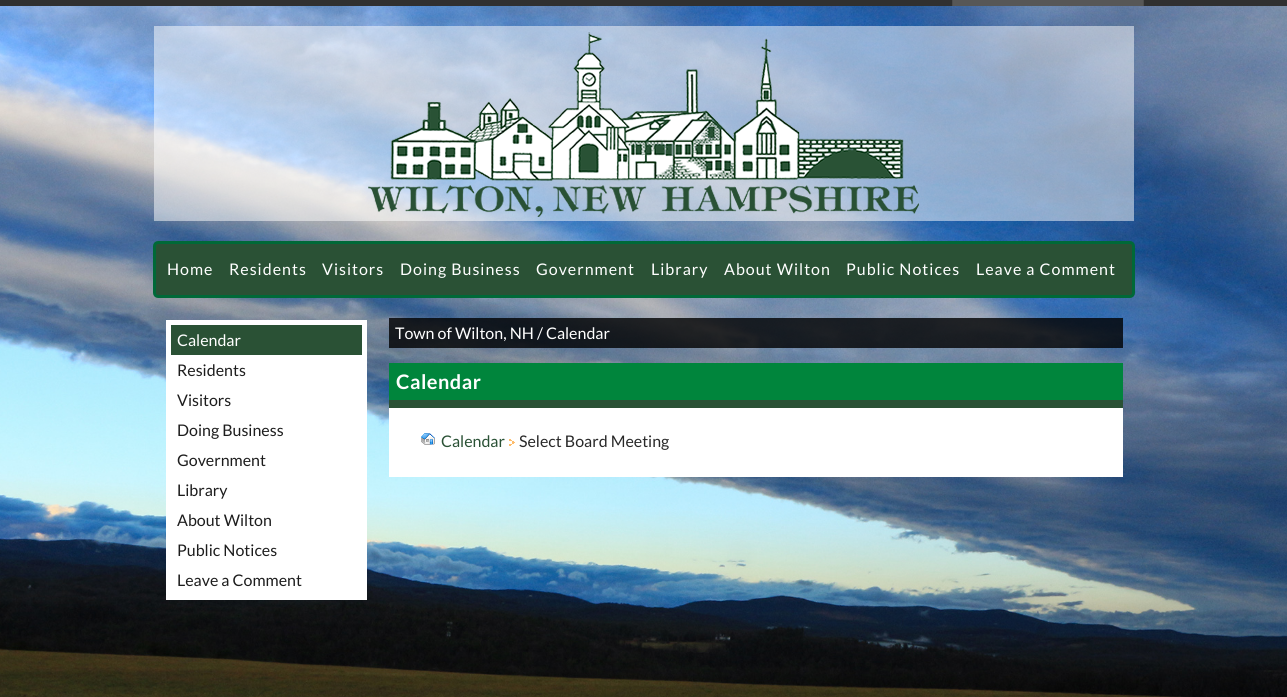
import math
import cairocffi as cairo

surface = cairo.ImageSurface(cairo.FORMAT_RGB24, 1287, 697)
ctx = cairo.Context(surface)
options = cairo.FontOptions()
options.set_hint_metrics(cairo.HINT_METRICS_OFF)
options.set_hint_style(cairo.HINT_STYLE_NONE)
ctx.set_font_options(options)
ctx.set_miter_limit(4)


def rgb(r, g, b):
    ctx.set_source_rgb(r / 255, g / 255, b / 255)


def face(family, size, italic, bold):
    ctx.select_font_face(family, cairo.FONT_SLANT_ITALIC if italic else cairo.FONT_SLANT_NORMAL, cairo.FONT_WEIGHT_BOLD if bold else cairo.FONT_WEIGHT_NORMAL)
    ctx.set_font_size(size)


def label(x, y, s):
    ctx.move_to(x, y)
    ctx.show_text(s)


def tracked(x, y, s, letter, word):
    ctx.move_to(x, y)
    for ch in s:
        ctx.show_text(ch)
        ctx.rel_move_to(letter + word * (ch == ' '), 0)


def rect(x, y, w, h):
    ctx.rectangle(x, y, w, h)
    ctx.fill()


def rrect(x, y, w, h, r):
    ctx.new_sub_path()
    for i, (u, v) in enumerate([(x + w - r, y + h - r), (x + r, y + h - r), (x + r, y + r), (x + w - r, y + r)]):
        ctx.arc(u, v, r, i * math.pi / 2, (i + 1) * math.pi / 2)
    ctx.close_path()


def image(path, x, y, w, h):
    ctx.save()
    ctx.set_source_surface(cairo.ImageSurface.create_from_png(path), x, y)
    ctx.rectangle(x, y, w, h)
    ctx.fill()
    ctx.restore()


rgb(255, 255, 255)
ctx.paint()
image('image0.png', 0, 6, 1287, 691)
rgb(48, 48, 48)
rect(0, 0, 1287, 6)
rgb(77, 77, 77)
rect(952, 0, 1, 6)
rect(1143, 0, 1, 6)
rgb(87, 87, 87)
rect(953, 0, 190, 6)
ctx.set_source_rgba(1, 1, 1, 0.5)
rect(154, 26, 980, 195)
image('image1.png', 368, 32, 551, 185)
rgb(42, 81, 53)
rrect(154.5, 242.5, 979, 54, 3.5)
ctx.fill_preserve()
rgb(0, 105, 56)
ctx.set_line_width(3)
ctx.stroke()
face('Lato', 16, 0, 0)
rgb(255, 255, 255)
tracked(167, 275, 'Home', 1, 0)
tracked(229, 275, 'Residents', 1, 0)
tracked(322, 275, 'Visitors', 1, 0)
tracked(400, 275, 'Doing Business', 1, 0)
tracked(536, 275, 'Government', 1, 0)
tracked(651, 275, 'Library', 1, 0)
tracked(724, 275, 'About Wilton', 1, 0)
tracked(846, 275, 'Public Notices', 1, 0)
tracked(976, 275, 'Leave a Comment', 1, 0)
rect(166, 320, 201, 280)
rgb(42, 81, 53)
rect(171, 325, 191, 30)
rgb(255, 255, 255)
label(177, 346, 'Calendar')
rgb(29, 29, 29)
label(177, 376, 'Residents')
label(177, 406, 'Visitors')
label(177, 436, 'Doing Business')
label(177, 466, 'Government')
label(177, 496, 'Library')
label(177, 526, 'About Wilton')
label(177, 556, 'Public Notices')
label(177, 586, 'Leave a Comment')
ctx.set_source_rgba(0, 0, 0, 0.8)
rect(389, 318, 734, 30)
rgb(255, 255, 255)
label(395, 339, 'Town of Wilton, NH / Calendar')
rgb(0, 133, 60)
rect(389, 363, 734, 37)
rgb(42, 81, 53)
rect(389, 400, 734, 8)
face('Lato', 20, 0, 1)
rgb(255, 255, 255)
tracked(396, 389, 'Calendar', 0.5, 0)
rect(389, 408, 734, 69)
image('image2.png', 421, 433, 14, 12)
face('Lato', 16, 0, 0)
rgb(42, 81, 53)
label(441, 447, 'Calendar')
image('image3.png', 509, 439, 6, 7)
rgb(40, 40, 40)
label(519, 447, 'Select Board Meeting')
surface.write_to_png('render.png')
